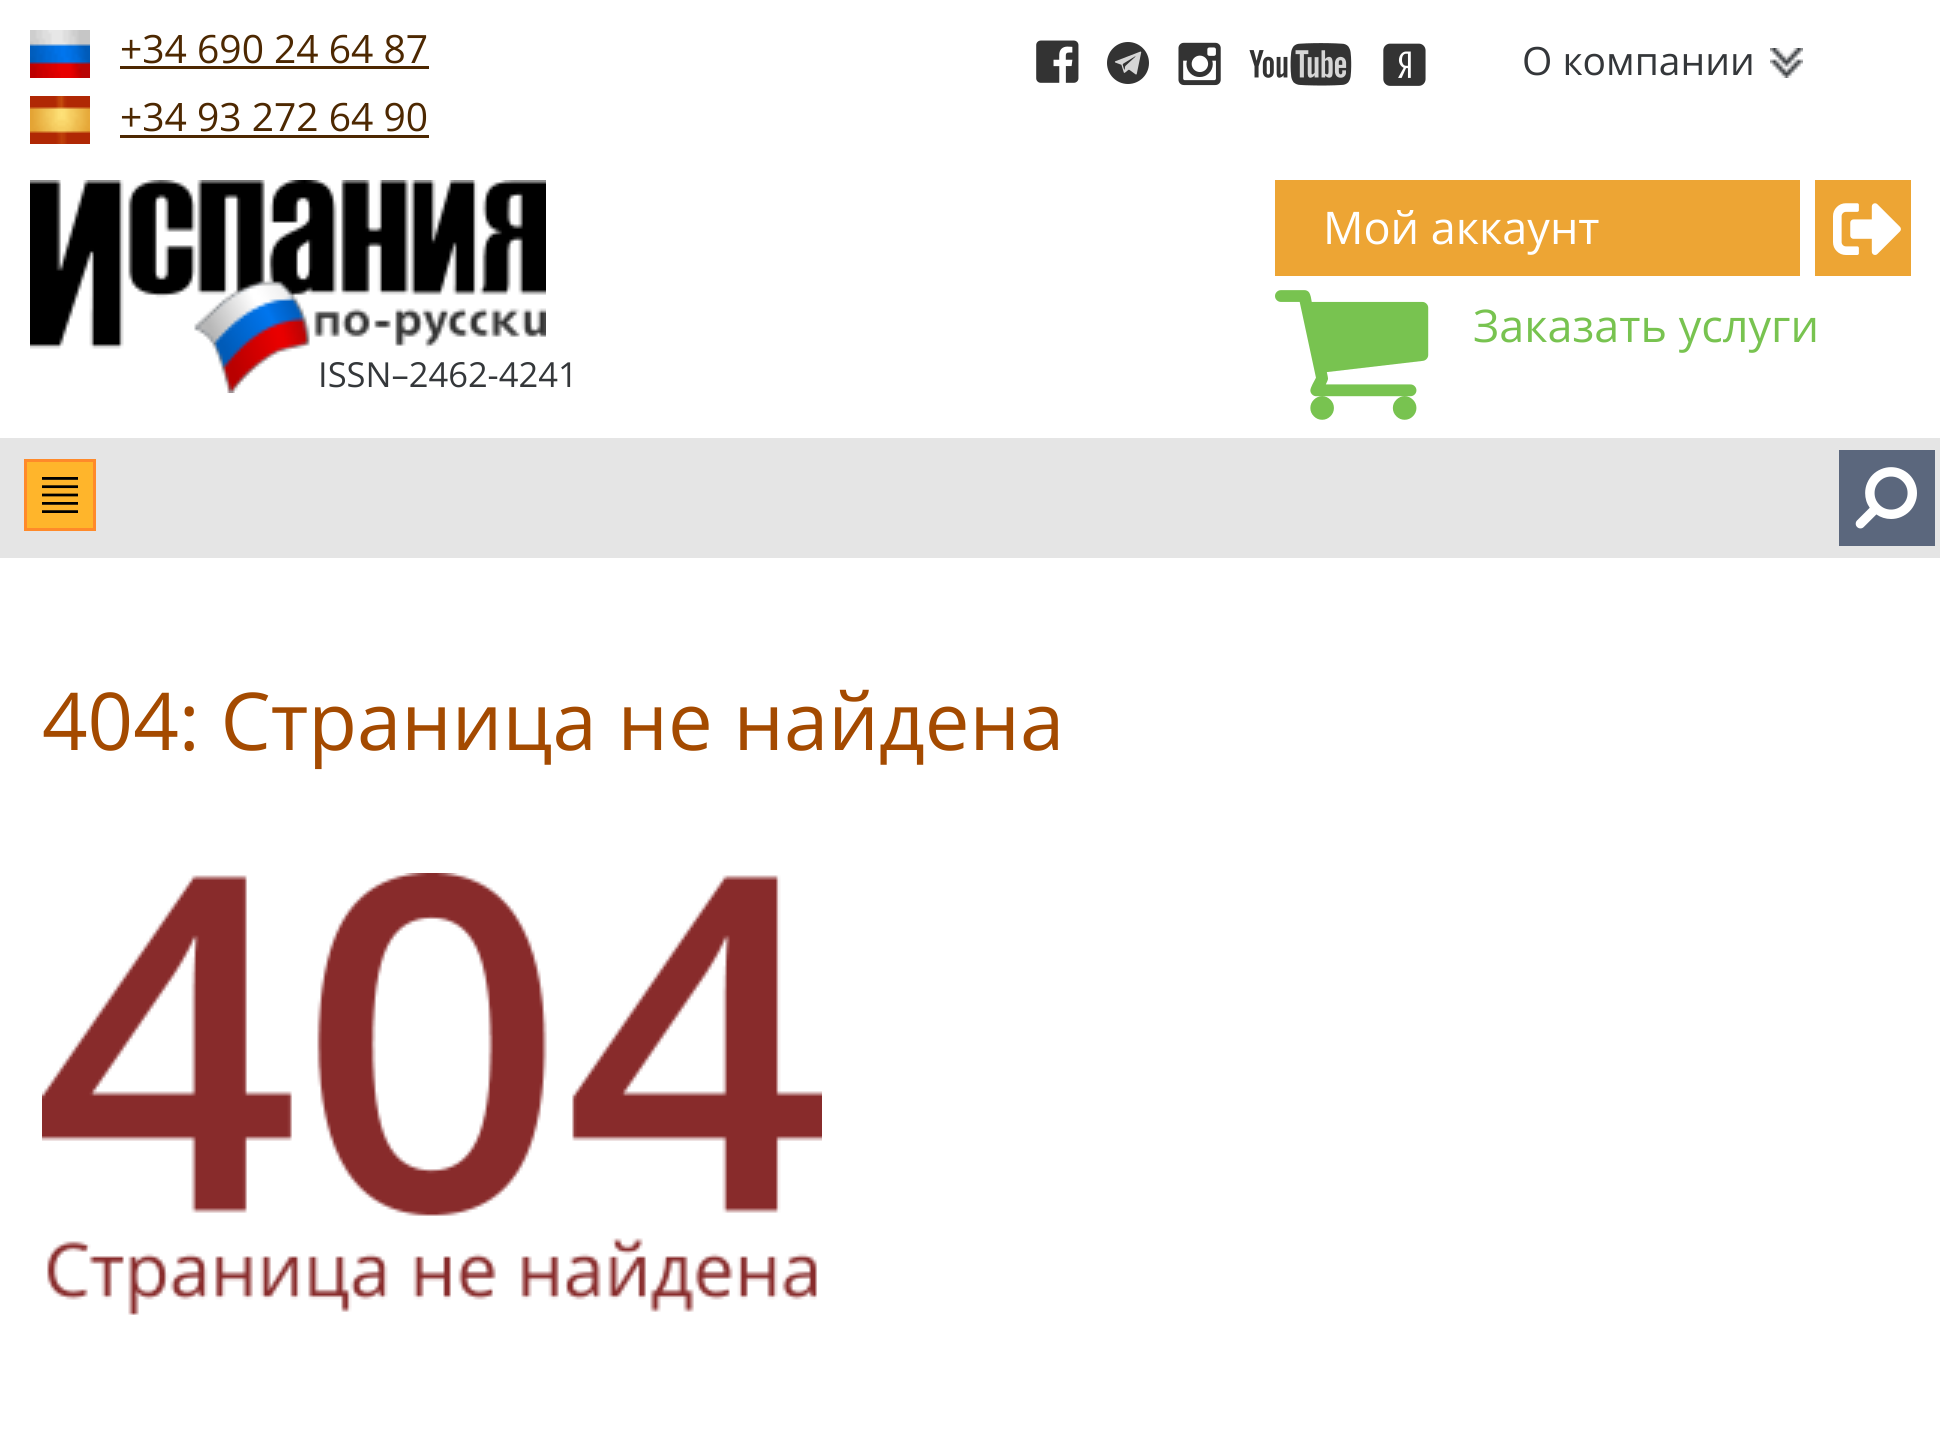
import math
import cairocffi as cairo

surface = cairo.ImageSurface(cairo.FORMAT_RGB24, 1940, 1439)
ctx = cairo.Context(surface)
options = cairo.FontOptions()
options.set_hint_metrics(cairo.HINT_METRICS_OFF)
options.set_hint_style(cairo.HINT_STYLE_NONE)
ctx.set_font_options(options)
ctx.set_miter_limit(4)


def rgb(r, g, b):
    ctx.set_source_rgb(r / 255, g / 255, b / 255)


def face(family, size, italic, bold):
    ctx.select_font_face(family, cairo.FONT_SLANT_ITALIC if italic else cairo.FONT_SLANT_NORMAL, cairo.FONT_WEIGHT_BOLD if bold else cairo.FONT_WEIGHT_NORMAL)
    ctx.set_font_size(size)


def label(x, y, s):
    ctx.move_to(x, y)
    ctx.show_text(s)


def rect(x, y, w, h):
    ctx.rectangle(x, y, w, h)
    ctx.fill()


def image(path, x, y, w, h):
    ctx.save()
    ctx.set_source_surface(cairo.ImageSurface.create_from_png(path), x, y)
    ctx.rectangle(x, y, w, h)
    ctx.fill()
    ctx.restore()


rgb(255, 255, 255)
ctx.paint()
image('image0.png', 30, 30, 60, 48)
face('Open Sans', 39, 0, 0)
rgb(77, 40, 1)
label(120, 63, '+34 690 24 64 87')
rect(120, 66, 309, 3)
image('image1.png', 30, 96, 60, 48)
label(120, 131, '+34 93 272 64 90')
rect(120, 135, 309, 3)
image('image2.png', 30, 180, 516, 213)
face('Open Sans', 34.5, 0, 0)
rgb(52, 55, 58)
label(318, 387, 'ISSN–2462-4241')
rgb(237, 165, 52)
rect(1275, 180, 525, 96)
face('Open Sans', 45, 0, 0)
rgb(255, 255, 255)
label(1323, 244, 'Мой аккаунт')
rgb(237, 165, 52)
rect(1815, 180, 96, 96)
image('image3.png', 1833, 203, 68, 52)
image('image4.png', 1275, 290, 154, 130)
rgb(120, 195, 80)
label(1473, 342, 'Заказать услуги')
rgb(229, 229, 229)
rect(0, 438, 1940, 120)
rgb(255, 181, 43)
rect(27, 462, 66, 66)
image('image5.png', 42, 477, 36, 36)
ctx.rectangle(25.5, 460.5, 69, 69)
rgb(255, 138, 42)
ctx.set_line_width(3)
ctx.stroke()
rgb(91, 103, 125)
rect(1839, 450, 96, 96)
image('image6.png', 1855, 467, 62, 62)
image('image7.png', 1036, 40, 43, 43)
image('image8.png', 1107, 42, 42, 42)
image('image9.png', 1178, 42, 43, 44)
image('image10.png', 1249, 43, 103, 43)
image('image11.png', 1383, 43, 43, 43)
face('Open Sans', 39, 0, 0)
rgb(52, 55, 58)
label(1522, 75, 'О компании')
image('image12.png', 1770, 48, 33, 30)
face('Open Sans', 79.75, 0, 0)
rgb(164, 74, 0)
label(42, 750, '404: Страница не найдена')
image('image13.png', 42, 873, 780, 442)
surface.write_to_png('render.png')
